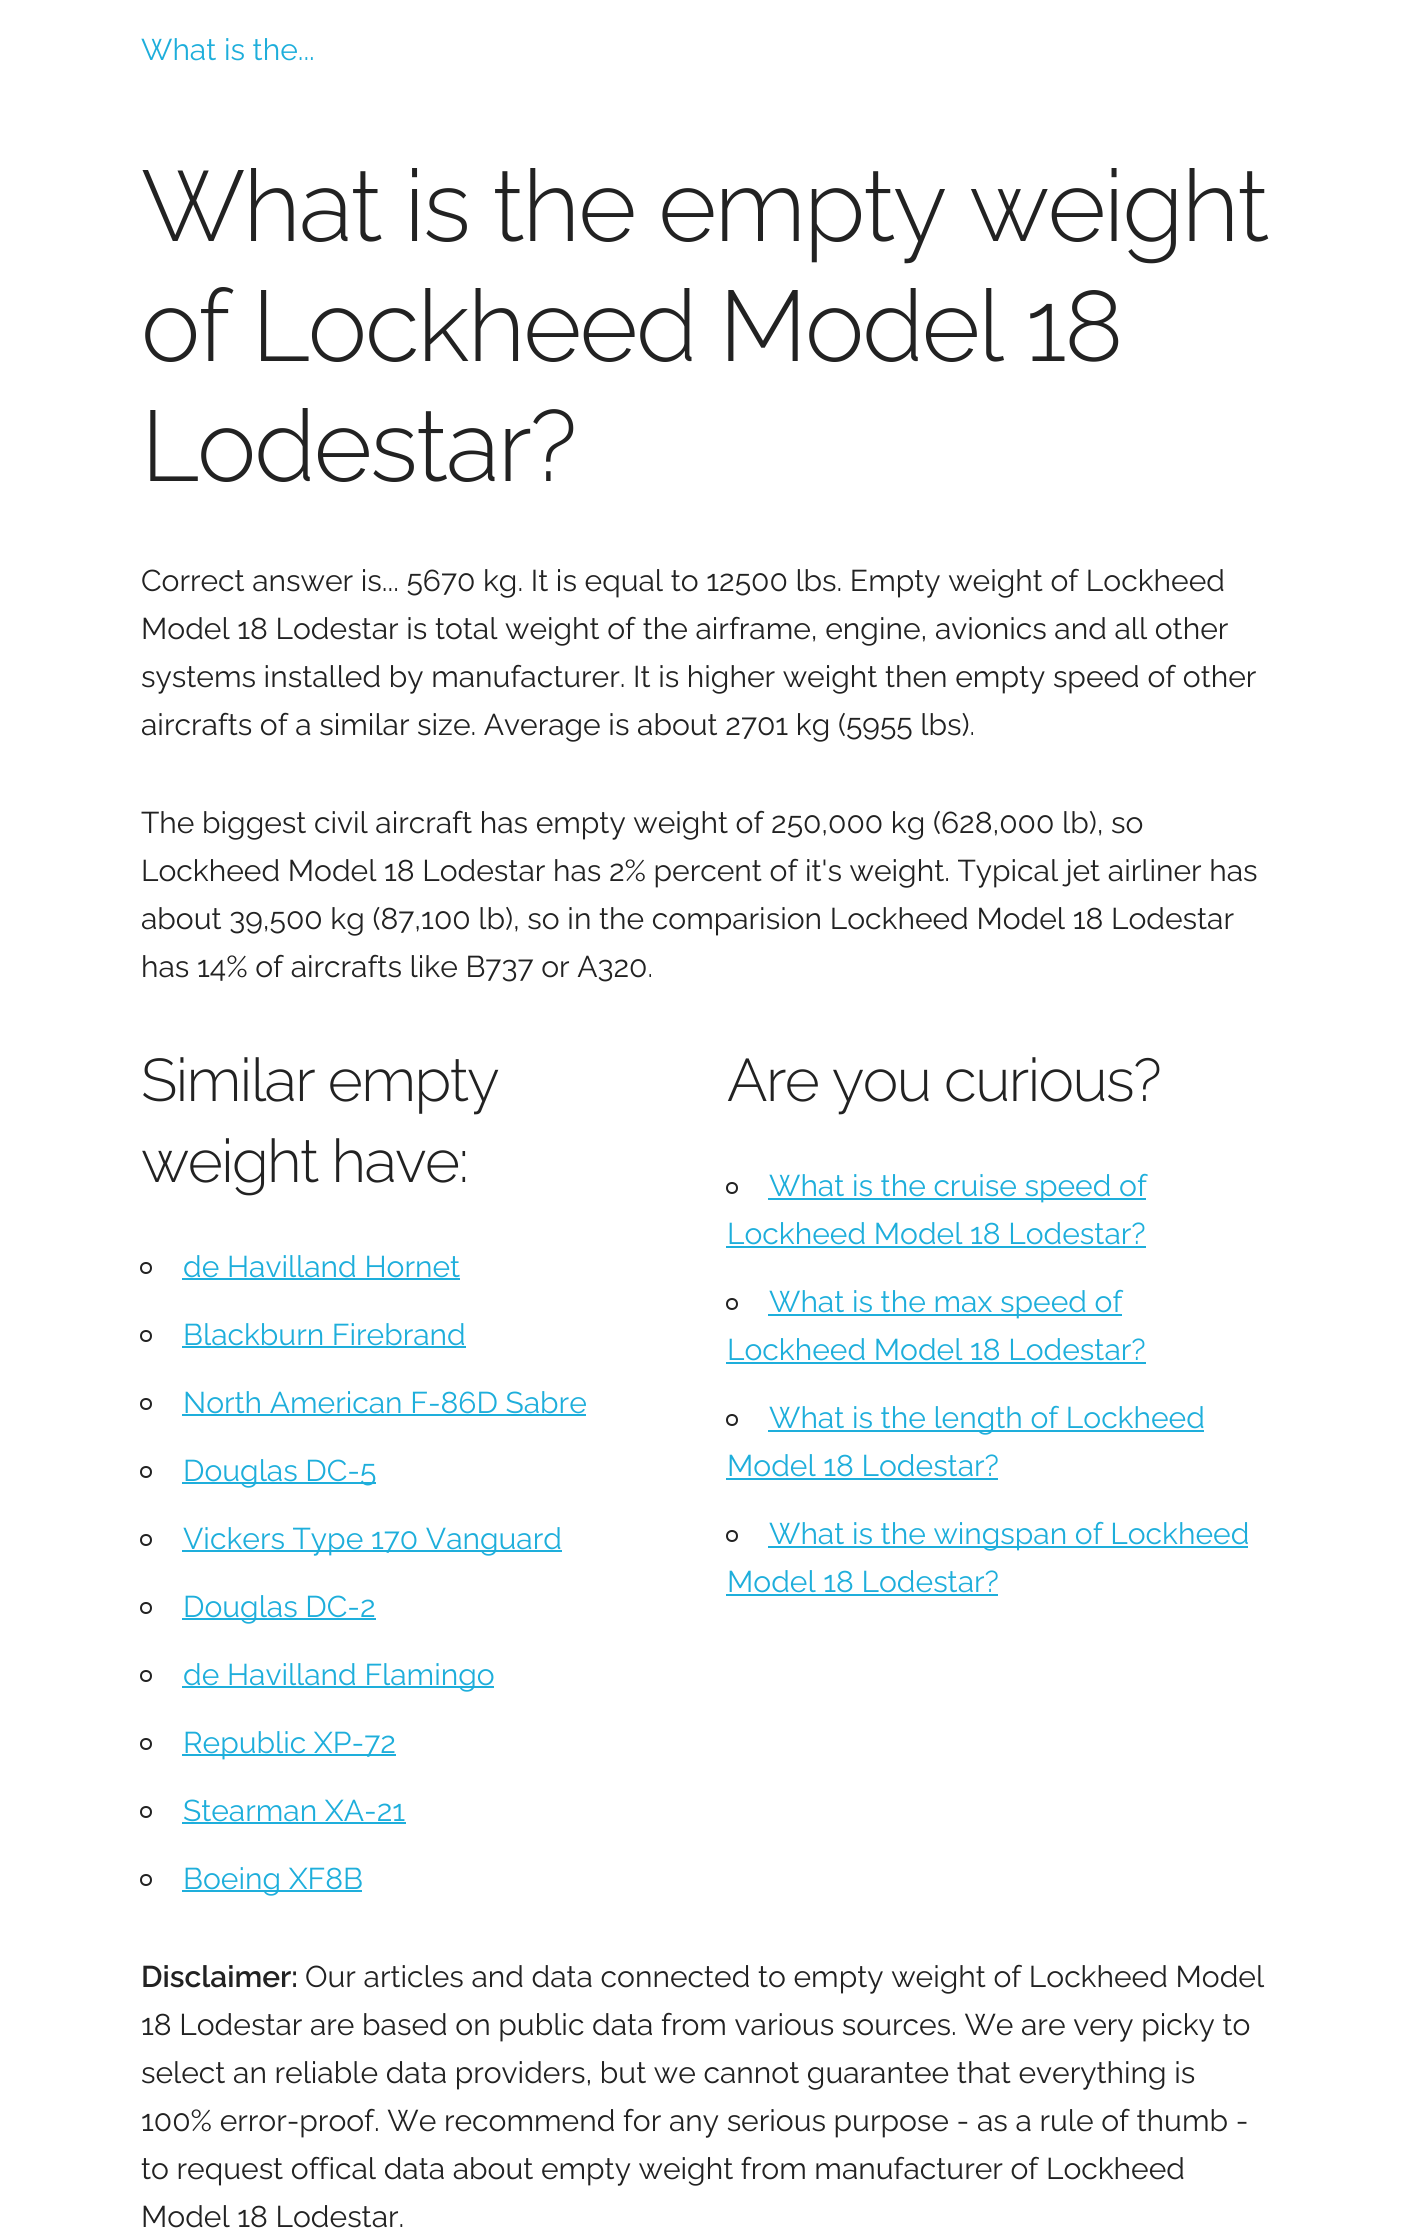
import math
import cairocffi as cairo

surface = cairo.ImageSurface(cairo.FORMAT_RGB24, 1408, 2235)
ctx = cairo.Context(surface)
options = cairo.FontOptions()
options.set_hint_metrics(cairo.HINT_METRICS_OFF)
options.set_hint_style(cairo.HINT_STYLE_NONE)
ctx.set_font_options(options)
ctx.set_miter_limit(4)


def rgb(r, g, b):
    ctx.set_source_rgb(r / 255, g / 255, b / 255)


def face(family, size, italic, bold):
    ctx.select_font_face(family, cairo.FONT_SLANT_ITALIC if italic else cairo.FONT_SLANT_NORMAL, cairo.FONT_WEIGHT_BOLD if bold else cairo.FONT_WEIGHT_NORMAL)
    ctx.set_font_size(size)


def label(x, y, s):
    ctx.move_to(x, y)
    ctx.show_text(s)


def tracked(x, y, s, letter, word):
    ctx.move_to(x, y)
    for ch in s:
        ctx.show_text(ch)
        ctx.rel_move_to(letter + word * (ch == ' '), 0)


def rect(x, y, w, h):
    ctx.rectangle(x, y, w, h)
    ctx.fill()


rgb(255, 255, 255)
ctx.paint()
face('Raleway', 30, 0, 0)
rgb(30, 174, 219)
label(141, 60, 'What is the...')
face('Raleway Light', 100, 0, 0)
rgb(34, 34, 34)
tracked(141, 241, 'What is the empty weight', -2, 0)
tracked(141, 361, 'of Lockheed Model 18', -2, 0)
tracked(141, 481, 'Lodestar?', -2, 0)
face('Raleway', 30, 0, 0)
label(141, 591, 'Correct answer is... 5670 kg. It is equal to 12500 lbs. Empty weight of Lockheed')
label(141, 639, 'Model 18 Lodestar is total weight of the airframe, engine, avionics and all other')
label(141, 687, 'systems installed by manufacturer. It is higher weight then empty speed of other')
label(141, 735, 'aircrafts of a similar size. Average is about 2701 kg (5955 lbs).')
label(141, 833, 'The biggest civil aircraft has empty weight of 250,000 kg (628,000 lb), so')
label(141, 881, 'Lockheed Model 18 Lodestar has 2% percent of it\'s weight. Typical jet airliner has')
label(141, 929, 'about 39,500 kg (87,100 lb), so in the comparision Lockheed Model 18 Lodestar')
label(141, 977, 'has 14% of aircrafts like B737 or A320.')
face('Raleway Light', 60, 0, 0)
tracked(141, 1101, 'Similar empty', -1.6, 0)
tracked(141, 1182, 'weight have:', -1.6, 0)
ctx.new_path()
ctx.arc(146, 1268, 5, 0, 2 * math.pi)
ctx.stroke()
face('Raleway', 30, 0, 0)
rgb(30, 174, 219)
label(183, 1277, 'de Havilland Hornet')
rect(182, 1278, 278, 2)
ctx.new_path()
ctx.arc(146, 1336, 5, 0, 2 * math.pi)
rgb(34, 34, 34)
ctx.stroke()
rgb(30, 174, 219)
label(183, 1345, 'Blackburn Firebrand')
rect(182, 1346, 284, 2)
ctx.new_path()
ctx.arc(146, 1404, 5, 0, 2 * math.pi)
rgb(34, 34, 34)
ctx.stroke()
rgb(30, 174, 219)
label(183, 1413, 'North American F-86D Sabre')
rect(182, 1414, 404, 2)
ctx.new_path()
ctx.arc(146, 1472, 5, 0, 2 * math.pi)
rgb(34, 34, 34)
ctx.stroke()
rgb(30, 174, 219)
rect(182, 1482, 194, 2)
label(183, 1481, 'Douglas DC-5')
ctx.new_path()
ctx.arc(146, 1540, 5, 0, 2 * math.pi)
rgb(34, 34, 34)
ctx.stroke()
rgb(30, 174, 219)
rect(182, 1550, 380, 2)
label(183, 1549, 'Vickers Type 170 Vanguard')
ctx.new_path()
ctx.arc(146, 1608, 5, 0, 2 * math.pi)
rgb(34, 34, 34)
ctx.stroke()
rgb(30, 174, 219)
rect(182, 1618, 194, 2)
label(183, 1617, 'Douglas DC-2')
ctx.new_path()
ctx.arc(146, 1676, 5, 0, 2 * math.pi)
rgb(34, 34, 34)
ctx.stroke()
rgb(30, 174, 219)
rect(182, 1686, 312, 2)
label(183, 1685, 'de Havilland Flamingo')
ctx.new_path()
ctx.arc(146, 1744, 5, 0, 2 * math.pi)
rgb(34, 34, 34)
ctx.stroke()
rgb(30, 174, 219)
rect(182, 1754, 214, 2)
label(183, 1753, 'Republic XP-72')
ctx.new_path()
ctx.arc(146, 1812, 5, 0, 2 * math.pi)
rgb(34, 34, 34)
ctx.stroke()
rgb(30, 174, 219)
label(183, 1821, 'Stearman XA-21')
rect(182, 1822, 224, 2)
ctx.new_path()
ctx.arc(146, 1880, 5, 0, 2 * math.pi)
rgb(34, 34, 34)
ctx.stroke()
rgb(30, 174, 219)
rect(182, 1890, 180, 2)
label(183, 1889, 'Boeing XF8B')
face('Raleway Light', 60, 0, 0)
rgb(34, 34, 34)
tracked(727, 1101, 'Are you curious?', -1.6, 0)
ctx.new_path()
ctx.arc(732, 1188, 5, 0, 2 * math.pi)
ctx.stroke()
rgb(30, 174, 219)
rect(768, 1198, 378, 2)
face('Raleway', 30, 0, 0)
label(769, 1196, 'What is the cruise speed of')
label(727, 1244, 'Lockheed Model 18 Lodestar?')
rect(726, 1246, 420, 2)
ctx.new_path()
ctx.arc(732, 1304, 5, 0, 2 * math.pi)
rgb(34, 34, 34)
ctx.stroke()
rgb(30, 174, 219)
rect(768, 1314, 354, 2)
label(769, 1312, 'What is the max speed of')
label(727, 1360, 'Lockheed Model 18 Lodestar?')
rect(726, 1362, 420, 2)
ctx.new_path()
ctx.arc(732, 1420, 5, 0, 2 * math.pi)
rgb(34, 34, 34)
ctx.stroke()
rgb(30, 174, 219)
rect(768, 1430, 436, 2)
label(769, 1428, 'What is the length of Lockheed')
label(727, 1476, 'Model 18 Lodestar?')
rect(726, 1478, 272, 2)
ctx.new_path()
ctx.arc(732, 1536, 5, 0, 2 * math.pi)
rgb(34, 34, 34)
ctx.stroke()
rgb(30, 174, 219)
rect(768, 1546, 480, 2)
label(769, 1544, 'What is the wingspan of Lockheed')
label(727, 1592, 'Model 18 Lodestar?')
rect(726, 1594, 272, 2)
face('Raleway SemiBold', 30, 0, 0)
rgb(34, 34, 34)
label(141, 1987, 'Disclaimer:')
face('Raleway', 30, 0, 0)
label(305, 1987, 'Our articles and data connected to empty weight of Lockheed Model')
label(141, 2035, '18 Lodestar are based on public data from various sources. We are very picky to')
label(141, 2083, 'select an reliable data providers, but we cannot guarantee that everything is')
label(141, 2131, '100% error-proof. We recommend for any serious purpose - as a rule of thumb -')
label(141, 2179, 'to request offical data about empty weight from manufacturer of Lockheed')
label(141, 2227, 'Model 18 Lodestar.')
surface.write_to_png('render.png')
